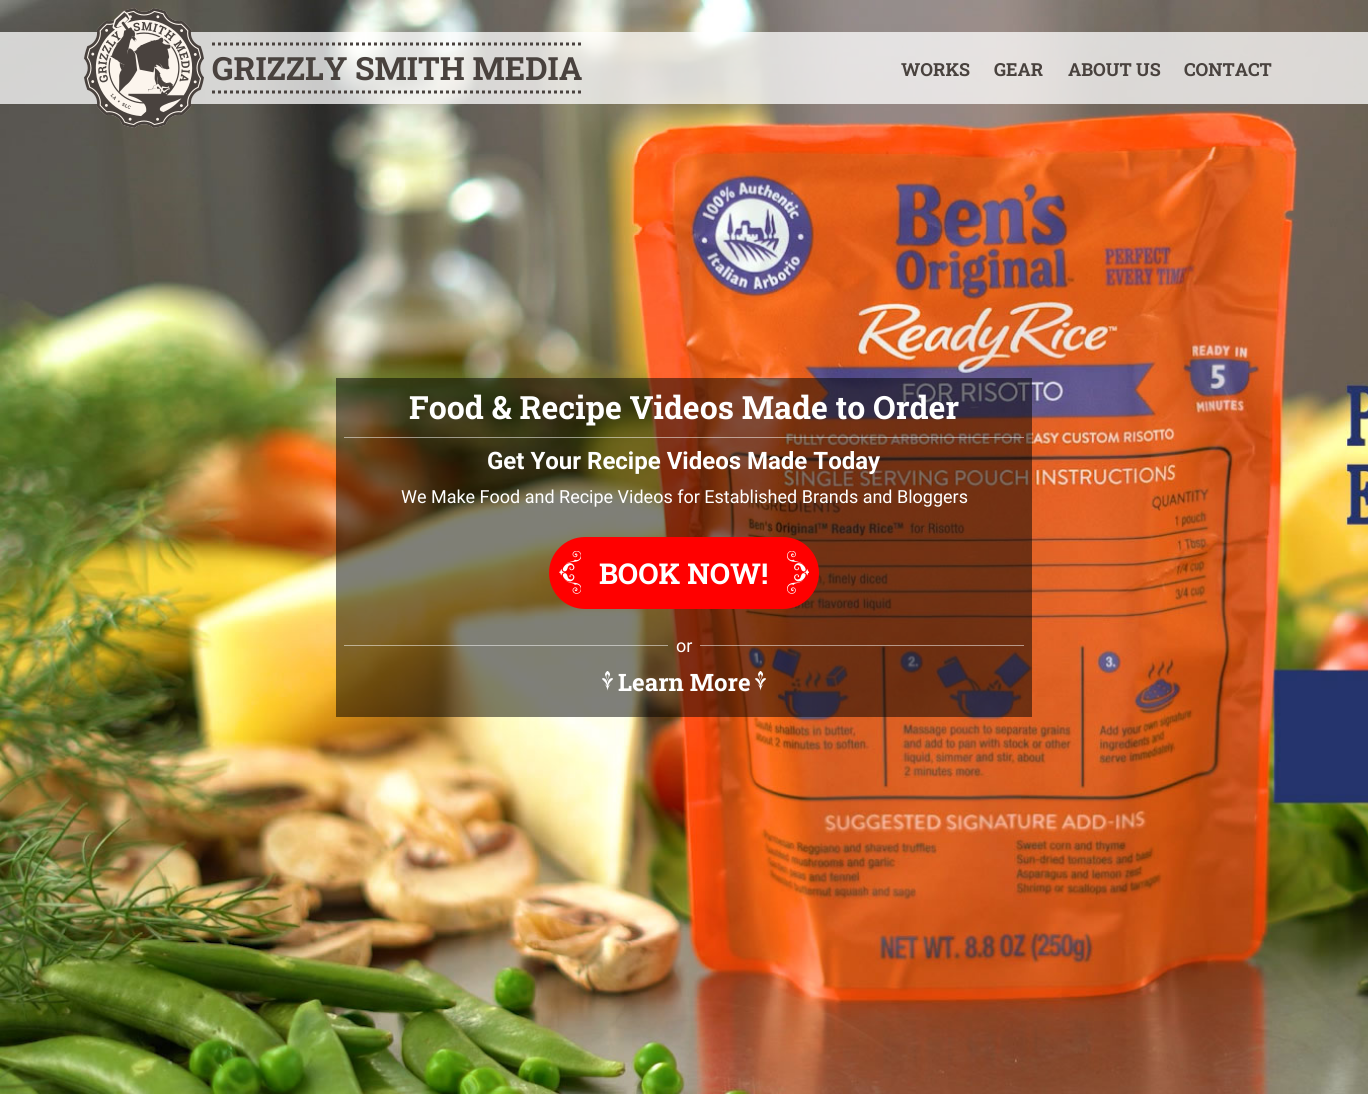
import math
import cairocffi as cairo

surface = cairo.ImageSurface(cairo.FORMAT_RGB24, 1368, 1094)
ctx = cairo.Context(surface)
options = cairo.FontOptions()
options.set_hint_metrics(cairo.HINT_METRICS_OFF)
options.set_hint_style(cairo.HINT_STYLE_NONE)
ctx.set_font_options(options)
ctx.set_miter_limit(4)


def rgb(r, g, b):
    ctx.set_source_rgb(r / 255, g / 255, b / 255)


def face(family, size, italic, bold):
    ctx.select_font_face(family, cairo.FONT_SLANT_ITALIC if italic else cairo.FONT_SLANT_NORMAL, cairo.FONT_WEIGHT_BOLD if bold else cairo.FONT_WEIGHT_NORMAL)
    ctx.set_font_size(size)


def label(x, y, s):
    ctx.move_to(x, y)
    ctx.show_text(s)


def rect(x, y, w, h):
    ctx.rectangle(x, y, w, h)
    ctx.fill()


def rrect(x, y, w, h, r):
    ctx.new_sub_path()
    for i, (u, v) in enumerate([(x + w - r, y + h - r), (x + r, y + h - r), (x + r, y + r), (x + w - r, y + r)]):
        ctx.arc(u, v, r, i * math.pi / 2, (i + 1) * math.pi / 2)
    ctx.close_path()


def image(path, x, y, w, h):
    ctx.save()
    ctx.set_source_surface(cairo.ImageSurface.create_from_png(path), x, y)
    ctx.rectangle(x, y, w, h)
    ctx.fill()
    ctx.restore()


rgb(255, 255, 255)
ctx.paint()
image('image1.png', 0, 0, 1368, 1094)
ctx.set_source_rgba(1, 1, 1, 0.75)
rect(0, 32, 1368, 72)
image('image0.png', 84, 8, 120, 120)
ctx.new_path()
ctx.move_to(212, 44)
ctx.line_to(582, 44)
rgb(73, 66, 62)
ctx.set_line_width(3)
ctx.set_dash([3, 3])
ctx.stroke()
ctx.new_path()
ctx.move_to(212, 92)
ctx.line_to(582, 92)
ctx.stroke()
face('Roboto Slab', 32, 0, 1)
label(212, 80, 'GRIZZLY SMITH MEDIA')
face('Roboto Slab', 18, 0, 1)
label(901, 76, 'WORKS')
label(994, 76, 'GEAR')
label(1068, 76, 'ABOUT US')
label(1184, 76, 'CONTACT')
ctx.set_source_rgba(0, 0, 0, 0.5)
rect(336, 378, 696, 339)
ctx.set_source_rgba(1, 1, 1, 0.5)
rect(344, 437, 680, 1)
face('Roboto Slab', 32, 0, 1)
rgb(255, 255, 255)
label(409, 419, 'Food & Recipe Videos Made to Order')
face('Roboto', 24, 0, 1)
label(487, 469, 'Get Your Recipe Videos Made Today')
face('Roboto', 18, 0, 0)
label(401, 503, 'We Make Food and Recipe Videos for Established Brands and Bloggers')
rgb(255, 0, 0)
rrect(549, 537, 270, 72, 36)
ctx.fill()
image('image2.png', 787, 551, 22, 43)
image('image3.png', 559, 551, 22, 43)
face('Roboto Slab', 28.75, 0, 1)
rgb(255, 255, 255)
label(599, 584, 'BOOK NOW!')
ctx.set_source_rgba(1, 1, 1, 0.5)
rect(344, 645, 324, 1)
face('Roboto', 18, 0, 0)
rgb(255, 255, 255)
label(676, 652, 'or')
ctx.set_source_rgba(1, 1, 1, 0.5)
rect(700, 645, 324, 1)
image('image4.png', 602, 671, 11, 20)
face('Roboto Slab', 24, 0, 1)
rgb(255, 255, 255)
label(618, 691, 'Learn More')
image('image5.png', 755, 671, 11, 20)
surface.write_to_png('render.png')
